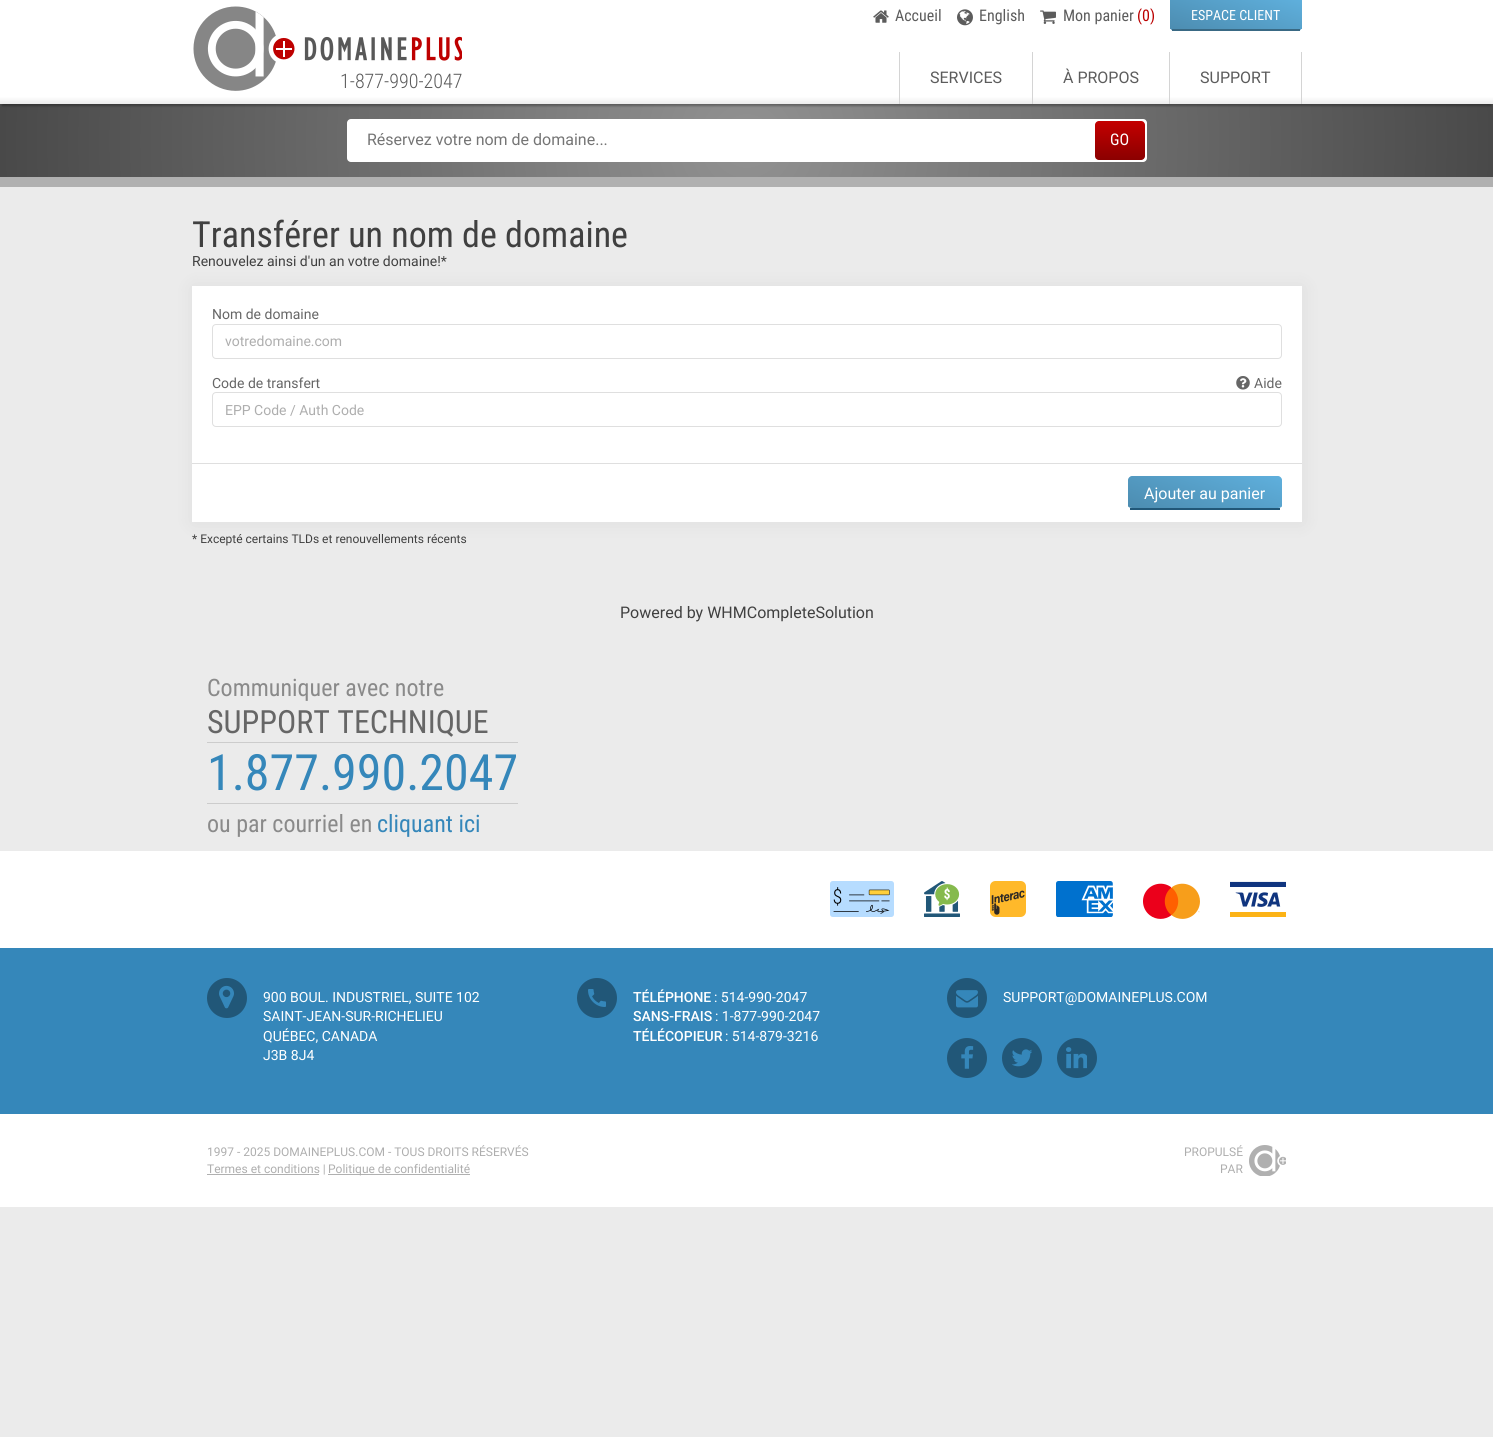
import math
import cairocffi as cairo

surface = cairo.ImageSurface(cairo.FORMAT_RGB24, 1493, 1437)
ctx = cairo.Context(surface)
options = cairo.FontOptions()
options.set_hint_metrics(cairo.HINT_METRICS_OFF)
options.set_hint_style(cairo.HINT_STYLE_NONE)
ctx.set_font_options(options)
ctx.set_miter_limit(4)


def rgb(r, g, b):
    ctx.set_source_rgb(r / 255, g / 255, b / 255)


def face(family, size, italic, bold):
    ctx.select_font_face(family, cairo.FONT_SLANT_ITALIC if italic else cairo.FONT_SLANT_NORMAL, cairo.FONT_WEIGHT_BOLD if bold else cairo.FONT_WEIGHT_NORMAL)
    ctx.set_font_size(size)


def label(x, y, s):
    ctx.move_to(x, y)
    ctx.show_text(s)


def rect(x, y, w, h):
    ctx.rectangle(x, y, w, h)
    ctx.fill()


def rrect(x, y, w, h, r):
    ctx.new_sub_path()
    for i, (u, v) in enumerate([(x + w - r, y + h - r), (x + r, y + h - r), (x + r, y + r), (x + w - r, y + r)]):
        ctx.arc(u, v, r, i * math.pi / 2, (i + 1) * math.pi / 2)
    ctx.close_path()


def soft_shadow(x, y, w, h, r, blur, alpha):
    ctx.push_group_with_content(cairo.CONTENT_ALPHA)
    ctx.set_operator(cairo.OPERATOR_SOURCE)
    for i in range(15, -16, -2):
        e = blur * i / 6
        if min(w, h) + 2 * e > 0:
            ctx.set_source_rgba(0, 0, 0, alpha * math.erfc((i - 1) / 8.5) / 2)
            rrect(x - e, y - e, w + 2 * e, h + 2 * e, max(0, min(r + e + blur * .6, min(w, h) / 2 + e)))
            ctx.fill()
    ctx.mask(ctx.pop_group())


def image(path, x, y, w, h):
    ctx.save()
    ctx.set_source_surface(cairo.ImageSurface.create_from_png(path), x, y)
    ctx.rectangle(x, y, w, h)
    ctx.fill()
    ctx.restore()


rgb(235, 235, 235)
ctx.paint()
gradient = cairo.RadialGradient(747, 141, 0, 747, 141, 747)
gradient.add_color_stop_rgba(0, 0.569, 0.569, 0.569, 1)
gradient.add_color_stop_rgba(1, 0.286, 0.286, 0.286, 1)
ctx.set_source(gradient)
rect(0, 104, 1493, 73)
rgb(0, 0, 0)
soft_shadow(2, 6, 1489, 100, 0, 1, 0.3)
gradient = cairo.LinearGradient(747, 0, 747, 104)
gradient.add_color_stop_rgba(0.93, 1, 1, 1, 1)
gradient.add_color_stop_rgba(1, 0.925, 0.925, 0.925, 1)
ctx.set_source(gradient)
rect(0, 0, 1493, 104)
image('image0.png', 193, 6, 269, 85)
face('Roboto Condensed Light', 20, 0, 0)
rgb(92, 92, 92)
label(340, 88, '1-877-990-2047')
image('image1.png', 873, 10, 16, 13)
face('Roboto Condensed', 16, 0, 0)
label(895, 21, 'Accueil')
image('image2.png', 957, 9, 16, 17)
label(979, 21, 'English')
image('image3.png', 1040, 10, 16, 14)
label(1063, 21, 'Mon panier')
rgb(187, 0, 0)
label(1137, 21, '(0)')
gradient = cairo.LinearGradient(1224, 49, 1248, -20)
gradient.add_color_stop_rgba(0, 0.298, 0.549, 0.69, 1)
gradient.add_color_stop_rgba(1, 0.373, 0.69, 0.867, 1)
ctx.set_source(gradient)
rect(1170, 0, 132, 29)
ctx.save()
ctx.new_path()
ctx.move_to(1170, 0)
ctx.line_to(1302, 0)
ctx.line_to(1302, 27)
ctx.curve_to(1302, 29, 1300, 31, 1298, 31)
ctx.line_to(1174, 31)
ctx.curve_to(1172, 31, 1170, 29, 1170, 27)
ctx.close_path()
ctx.clip()
gradient = cairo.LinearGradient(1224, 78, 1248, 9)
gradient.add_color_stop_rgba(0, 0.298, 0.549, 0.69, 1)
gradient.add_color_stop_rgba(1, 0.373, 0.69, 0.867, 1)
ctx.set_source(gradient)
rect(1170, 29, 132, 2)
ctx.restore()
rgb(57, 105, 132)
rect(1172, 29, 128, 2)
face('Roboto Condensed', 14, 0, 0)
rgb(255, 255, 255)
label(1191, 20, 'ESPACE CLIENT')
rgb(212, 212, 212)
rect(899, 52, 1, 52)
face('Roboto', 16, 0, 0)
rgb(92, 92, 92)
label(930, 83, 'SERVICES')
rgb(212, 212, 212)
rect(1032, 52, 1, 52)
rgb(92, 92, 92)
label(1063, 83, 'À PROPOS')
rgb(212, 212, 212)
rect(1301, 52, 1, 52)
rect(1169, 52, 1, 52)
rgb(92, 92, 92)
label(1200, 83, 'SUPPORT')
rgb(176, 176, 176)
rect(0, 177, 1493, 10)
rgb(255, 255, 255)
rrect(347, 119, 800, 43, 4)
ctx.fill()
rgb(117, 117, 117)
label(367, 145, 'Réservez votre nom de domaine...')
gradient = cairo.LinearGradient(1120, 160, 1120, 121)
gradient.add_color_stop_rgba(0, 0.545, 0, 0, 1)
gradient.add_color_stop_rgba(1, 0.769, 0, 0, 1)
ctx.set_source(gradient)
rrect(1095, 121, 50, 39, 4)
ctx.fill()
face('Roboto Condensed', 16, 0, 0)
rgb(255, 255, 255)
label(1110, 145, 'GO')
face('Roboto Condensed', 36, 0, 0)
rgb(64, 64, 64)
label(192, 247, 'Transférer un nom de domaine')
face('Roboto', 14, 0, 0)
label(192, 266, 'Renouvelez ainsi d\'un an votre domaine!*')
rgb(0, 0, 0)
soft_shadow(193, 287, 1110, 236, 0, 10, 0.06)
rgb(255, 255, 255)
rect(192, 286, 1110, 236)
rgb(102, 102, 102)
label(212, 319, 'Nom de domaine')
rrect(212.5, 324.5, 1069, 34, 3.5)
rgb(223, 223, 223)
ctx.set_line_width(1)
ctx.stroke()
rgb(174, 174, 174)
label(225, 346, 'votredomaine.com')
rgb(102, 102, 102)
label(212, 388, 'Code de transfert')
image('image4.png', 1236, 376, 14, 14)
label(1254, 388, 'Aide')
rrect(212.5, 392.5, 1069, 34, 3.5)
rgb(223, 223, 223)
ctx.stroke()
rgb(174, 174, 174)
label(225, 415, 'EPP Code / Auth Code')
rgb(223, 223, 223)
rect(192, 463, 1110, 1)
gradient = cairo.LinearGradient(1191, 531, 1219, 453)
gradient.add_color_stop_rgba(0, 0.298, 0.549, 0.69, 1)
gradient.add_color_stop_rgba(1, 0.373, 0.69, 0.867, 1)
ctx.set_source(gradient)
ctx.new_path()
ctx.move_to(1132, 476)
ctx.line_to(1278, 476)
ctx.curve_to(1280, 476, 1282, 478, 1282, 480)
ctx.line_to(1282, 506)
ctx.curve_to(1282, 507, 1280, 508, 1278, 508)
ctx.line_to(1132, 508)
ctx.curve_to(1130, 508, 1128, 507, 1128, 506)
ctx.line_to(1128, 480)
ctx.curve_to(1128, 478, 1130, 476, 1132, 476)
ctx.close_path()
ctx.fill()
rgb(33, 87, 120)
rect(1130, 508, 150, 2)
face('Roboto', 16, 0, 0)
rgb(255, 255, 255)
label(1144, 499, 'Ajouter au panier')
face('Roboto', 12, 0, 0)
rgb(64, 64, 64)
label(192, 543, '* Excepté certains TLDs et renouvellements récents')
face('Roboto', 16, 0, 0)
label(620, 618, 'Powered by WHMCompleteSolution')
face('Roboto Condensed', 24, 0, 0)
rgb(138, 138, 138)
label(207, 696, 'Communiquer avec notre')
face('Roboto Condensed', 32, 0, 0)
rgb(102, 102, 102)
label(207, 733, 'SUPPORT TECHNIQUE')
rgb(204, 204, 204)
rect(207, 742, 311, 1)
face('Roboto Condensed', 50, 0, 0)
rgb(53, 135, 186)
label(207, 790, '1.877.990.2047')
rgb(204, 204, 204)
rect(207, 803, 311, 1)
face('Roboto Condensed', 24, 0, 0)
rgb(138, 138, 138)
label(207, 832, 'ou par courriel en')
rgb(53, 135, 186)
label(377, 832, 'cliquant ici')
rgb(255, 255, 255)
rect(0, 851, 1493, 356)
image('image5.png', 830, 881, 64, 36)
image('image6.png', 924, 881, 36, 36)
image('image7.png', 990, 881, 36, 36)
image('image8.png', 1056, 881, 57, 36)
image('image9.png', 1143, 883, 57, 36)
image('image10.png', 1230, 881, 56, 36)
rgb(53, 135, 186)
rect(0, 948, 1493, 166)
rgb(33, 87, 120)
ctx.arc(227, 998, 20, 0, 2 * math.pi)
ctx.fill()
image('image11.png', 219, 985, 15, 24)
face('Roboto', 14, 0, 0)
rgb(255, 255, 255)
label(263, 1002, '900 BOUL. INDUSTRIEL, SUITE 102')
label(263, 1021, 'SAINT-JEAN-SUR-RICHELIEU')
label(263, 1041, 'QUÉBEC, CANADA')
label(263, 1060, 'J3B 8J4')
rgb(33, 87, 120)
ctx.new_path()
ctx.arc(597, 998, 20, 0, 2 * math.pi)
ctx.fill()
image('image12.png', 588, 989, 18, 18)
face('Roboto Medium', 14, 0, 0)
rgb(255, 255, 255)
label(633, 1002, 'TÉLÉPHONE')
face('Roboto', 14, 0, 0)
label(714, 1002, ': 514-990-2047')
face('Roboto Medium', 14, 0, 0)
label(633, 1021, 'SANS-FRAIS')
face('Roboto', 14, 0, 0)
label(715, 1021, ': 1-877-990-2047')
face('Roboto Medium', 14, 0, 0)
label(633, 1041, 'TÉLÉCOPIEUR')
face('Roboto', 14, 0, 0)
label(725, 1041, ': 514-879-3216')
rgb(33, 87, 120)
ctx.new_path()
ctx.arc(967, 998, 20, 0, 2 * math.pi)
ctx.fill()
image('image13.png', 956, 990, 22, 18)
rgb(255, 255, 255)
label(1003, 1002, 'SUPPORT@DOMAINEPLUS.COM')
rgb(33, 87, 120)
ctx.new_path()
ctx.arc(967, 1058, 20, 0, 2 * math.pi)
ctx.fill()
image('image14.png', 961, 1046, 13, 23)
ctx.arc(1022, 1058, 20, 0, 2 * math.pi)
ctx.fill()
image('image15.png', 1012, 1049, 20, 18)
ctx.arc(1077, 1058, 20, 0, 2 * math.pi)
ctx.fill()
image('image16.png', 1066, 1047, 21, 22)
face('Roboto', 12, 0, 0)
rgb(174, 174, 174)
label(207, 1156, '1997 - 2025 DOMAINEPLUS.COM - TOUS DROITS RÉSERVÉS')
rgb(176, 176, 176)
rect(207, 1174, 112, 1)
rgb(174, 174, 174)
label(207, 1173, 'Termes et conditions |')
rgb(176, 176, 176)
rect(328, 1174, 142, 1)
rgb(174, 174, 174)
label(328, 1173, 'Politique de confidentialité')
label(1184, 1156, 'PROPULSÉ')
label(1220, 1173, 'PAR')
image('image17.png', 1249, 1145, 37, 31)
surface.write_to_png('render.png')
